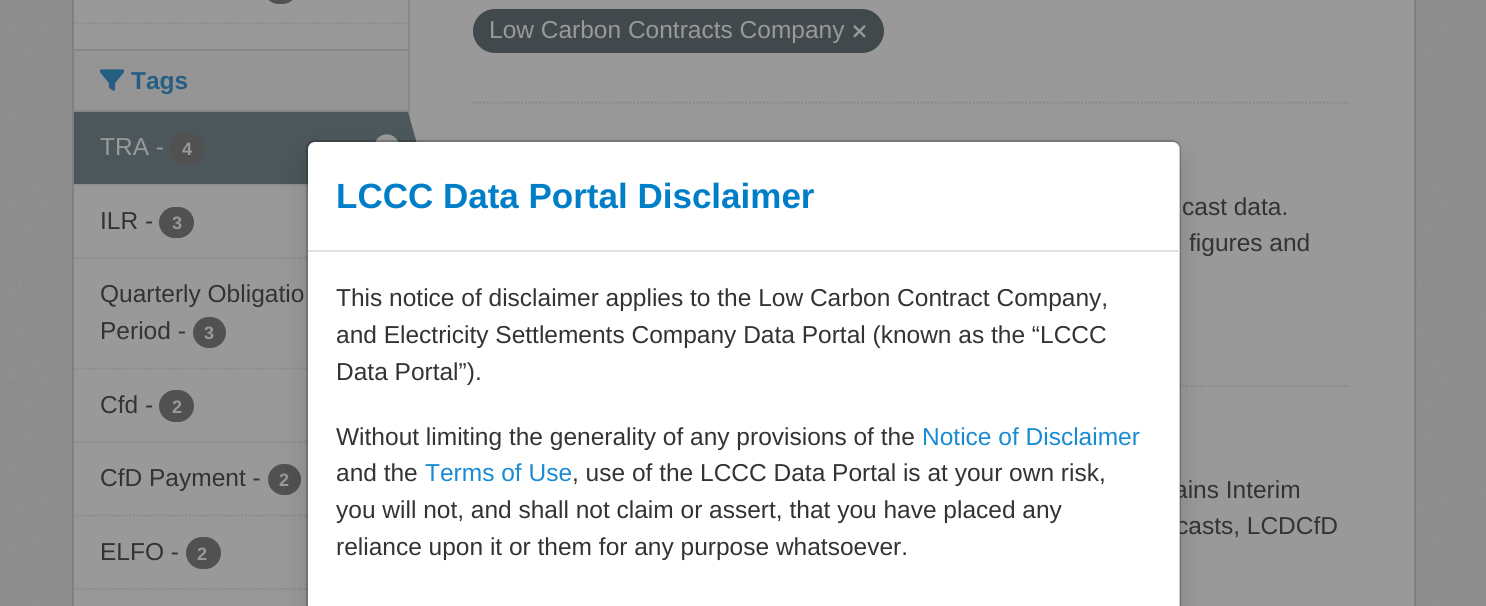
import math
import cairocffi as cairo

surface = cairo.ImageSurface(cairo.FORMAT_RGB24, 1486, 606)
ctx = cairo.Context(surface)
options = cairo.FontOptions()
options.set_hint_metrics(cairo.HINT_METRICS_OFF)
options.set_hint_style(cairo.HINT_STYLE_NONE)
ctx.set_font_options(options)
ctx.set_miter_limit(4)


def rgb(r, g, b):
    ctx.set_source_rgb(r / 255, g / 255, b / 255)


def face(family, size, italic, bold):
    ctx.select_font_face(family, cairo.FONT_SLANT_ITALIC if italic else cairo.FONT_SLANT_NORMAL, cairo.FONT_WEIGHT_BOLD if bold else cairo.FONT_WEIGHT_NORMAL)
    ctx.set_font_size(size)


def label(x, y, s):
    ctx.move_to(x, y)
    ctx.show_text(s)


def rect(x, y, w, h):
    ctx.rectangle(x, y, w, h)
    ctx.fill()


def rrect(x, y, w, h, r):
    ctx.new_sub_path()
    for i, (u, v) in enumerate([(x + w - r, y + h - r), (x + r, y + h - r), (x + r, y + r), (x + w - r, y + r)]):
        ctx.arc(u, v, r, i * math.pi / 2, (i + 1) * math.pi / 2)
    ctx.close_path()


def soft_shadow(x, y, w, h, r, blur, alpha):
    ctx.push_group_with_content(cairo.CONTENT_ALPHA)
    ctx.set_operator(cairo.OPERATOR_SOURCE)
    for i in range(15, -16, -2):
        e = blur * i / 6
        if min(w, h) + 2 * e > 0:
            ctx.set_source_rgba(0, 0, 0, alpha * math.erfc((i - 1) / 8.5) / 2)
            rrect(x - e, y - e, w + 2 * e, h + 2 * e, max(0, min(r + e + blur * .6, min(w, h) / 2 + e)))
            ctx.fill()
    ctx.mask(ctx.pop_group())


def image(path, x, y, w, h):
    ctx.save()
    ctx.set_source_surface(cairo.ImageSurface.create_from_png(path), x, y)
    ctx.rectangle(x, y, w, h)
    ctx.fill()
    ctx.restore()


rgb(145, 145, 145)
ctx.paint()
image('image0.png', 0, 0, 1486, 606)
rgb(153, 153, 153)
ctx.rectangle(73, -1, 1342, 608)
ctx.fill_preserve()
rgb(128, 128, 128)
ctx.stroke()
rgb(81, 81, 81)
rrect(263, -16, 35, 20, 16)
ctx.fill()
ctx.new_path()
ctx.move_to(73.5, 23.5)
ctx.line_to(408, 23.5)
rgb(136, 136, 136)
ctx.set_line_width(1.8)
ctx.set_dash([1.75, 1.75])
ctx.stroke()
rgb(149, 149, 149)
rect(74, 51, 334, 59)
rgb(136, 136, 136)
rect(74, 49, 334, 2)
rect(74, 110, 334, 2)
image('image1.png', 99, 69, 26, 22)
face('Liberation Sans', 24.5, 0, 1)
rgb(38, 95, 131)
label(131, 89, 'Tags')
rgb(149, 149, 149)
rect(74, 184, 234, 2)
ctx.new_path()
ctx.move_to(73.5, 184.5)
ctx.line_to(408, 184.5)
rgb(136, 136, 136)
ctx.stroke()
rgb(76, 87, 91)
rect(74, 112, 334, 72)
face('Liberation Sans', 24.5, 0, 0)
rgb(153, 153, 153)
label(100, 155, 'TRA -')
rgb(81, 81, 81)
rrect(170, 133, 35, 32, 16)
ctx.fill()
face('Liberation Sans', 18, 0, 1)
rgb(153, 153, 153)
label(182, 155, '4')
image('image2.png', 375, 134, 23, 8)
rgb(136, 136, 136)
rect(408, 0, 2, 119)
rgb(76, 87, 91)
ctx.new_path()
ctx.move_to(408, 182)
ctx.line_to(408, 112)
ctx.line_to(418, 147)
ctx.close_path()
ctx.fill()
ctx.new_path()
ctx.move_to(73.5, 258)
ctx.line_to(408, 258)
rgb(136, 136, 136)
ctx.stroke()
face('Liberation Sans', 24.5, 0, 0)
rgb(51, 51, 51)
label(100, 229, 'ILR -')
rgb(81, 81, 81)
rrect(159, 207, 35, 31, 15.5)
ctx.fill()
face('Liberation Sans', 18, 0, 1)
rgb(153, 153, 153)
label(172, 229, '3')
ctx.new_path()
ctx.move_to(73.5, 368.5)
ctx.line_to(408, 368.5)
rgb(136, 136, 136)
ctx.stroke()
face('Liberation Sans', 24.5, 0, 0)
rgb(51, 51, 51)
label(100, 302, 'Quarterly Obligatio')
label(100, 339, 'Period -')
rgb(81, 81, 81)
rrect(193, 317, 33, 31, 15.5)
ctx.fill()
face('Liberation Sans', 18, 0, 1)
rgb(153, 153, 153)
label(204, 339, '3')
ctx.new_path()
ctx.move_to(73.5, 442)
ctx.line_to(408, 442)
rgb(136, 136, 136)
ctx.stroke()
face('Liberation Sans', 24.5, 0, 0)
rgb(51, 51, 51)
label(100, 413, 'Cfd -')
rgb(81, 81, 81)
rrect(159, 390, 35, 32, 16)
ctx.fill()
face('Liberation Sans', 18, 0, 1)
rgb(153, 153, 153)
label(172, 413, '2')
ctx.new_path()
ctx.move_to(73.5, 515.5)
ctx.line_to(408, 515.5)
rgb(136, 136, 136)
ctx.stroke()
face('Liberation Sans', 24.5, 0, 0)
rgb(51, 51, 51)
label(100, 486, 'CfD Payment -')
rgb(81, 81, 81)
rrect(268, 464, 33, 31, 15.5)
ctx.fill()
face('Liberation Sans', 18, 0, 1)
rgb(153, 153, 153)
label(279, 486, '2')
ctx.new_path()
ctx.move_to(73.5, 589)
ctx.line_to(408, 589)
rgb(136, 136, 136)
ctx.stroke()
face('Liberation Sans', 24.5, 0, 0)
rgb(51, 51, 51)
label(100, 560, 'ELFO -')
rgb(81, 81, 81)
rrect(186, 537, 35, 32, 16)
ctx.fill()
face('Liberation Sans', 18, 0, 1)
rgb(153, 153, 153)
label(197, 560, '2')
ctx.new_path()
ctx.move_to(472.5, 102.5)
ctx.line_to(1351, 102.5)
rgb(136, 136, 136)
ctx.stroke()
rgb(65, 73, 76)
rrect(473, 9, 411, 44, 22)
ctx.fill()
face('Liberation Sans', 24.5, 0, 0)
rgb(153, 153, 153)
label(489, 38, 'Low Carbon Contracts Company')
image('image3.png', 853, 25, 13, 13)
ctx.new_path()
ctx.move_to(472.5, 386)
ctx.line_to(1351, 386)
rgb(136, 136, 136)
ctx.stroke()
rgb(51, 51, 51)
label(1182, 215, 'cast data.')
label(1189, 251, 'figures and')
label(1174, 498, 'ains Interim')
label(1176, 534, 'casts, LCDCfD')
rgb(0, 0, 0)
soft_shadow(306, 154, 875, 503, 9, 14, 0.15)
rgb(255, 255, 255)
ctx.new_path()
ctx.move_to(315, 142)
ctx.line_to(1173, 142)
ctx.curve_to(1177, 142, 1180, 145, 1180, 149)
ctx.line_to(1180, 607)
ctx.line_to(308, 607)
ctx.line_to(308, 149)
ctx.curve_to(308, 145, 311, 142, 315, 142)
ctx.close_path()
ctx.fill()
rrect(307, 141, 873, 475, 8)
ctx.set_source_rgba(0, 0, 0, 0.2)
ctx.set_line_width(2)
ctx.set_dash([])
ctx.stroke()
rgb(222, 226, 230)
rect(308, 250, 872, 2)
face('Liberation Sans', 35, 0, 1)
rgb(1, 126, 200)
label(336, 208, 'LCCC Data Portal Disclaimer')
face('Liberation Sans', 24.5, 0, 0)
rgb(51, 51, 51)
label(336, 306, 'This notice of disclaimer applies to the Low Carbon Contract Company,')
label(336, 343, 'and Electricity Settlements Company Data Portal (known as the “LCCC')
label(336, 380, 'Data Portal”).')
label(336, 445, 'Without limiting the generality of any provisions of the')
rgb(24, 139, 210)
label(922, 445, 'Notice of Disclaimer')
rgb(51, 51, 51)
label(336, 481, 'and the')
rgb(24, 139, 210)
label(425, 481, 'Terms of Use')
rgb(51, 51, 51)
label(572, 481, ', use of the LCCC Data Portal is at your own risk,')
label(336, 518, 'you will not, and shall not claim or assert, that you have placed any')
label(336, 555, 'reliance upon it or them for any purpose whatsoever.')
surface.write_to_png('render.png')
